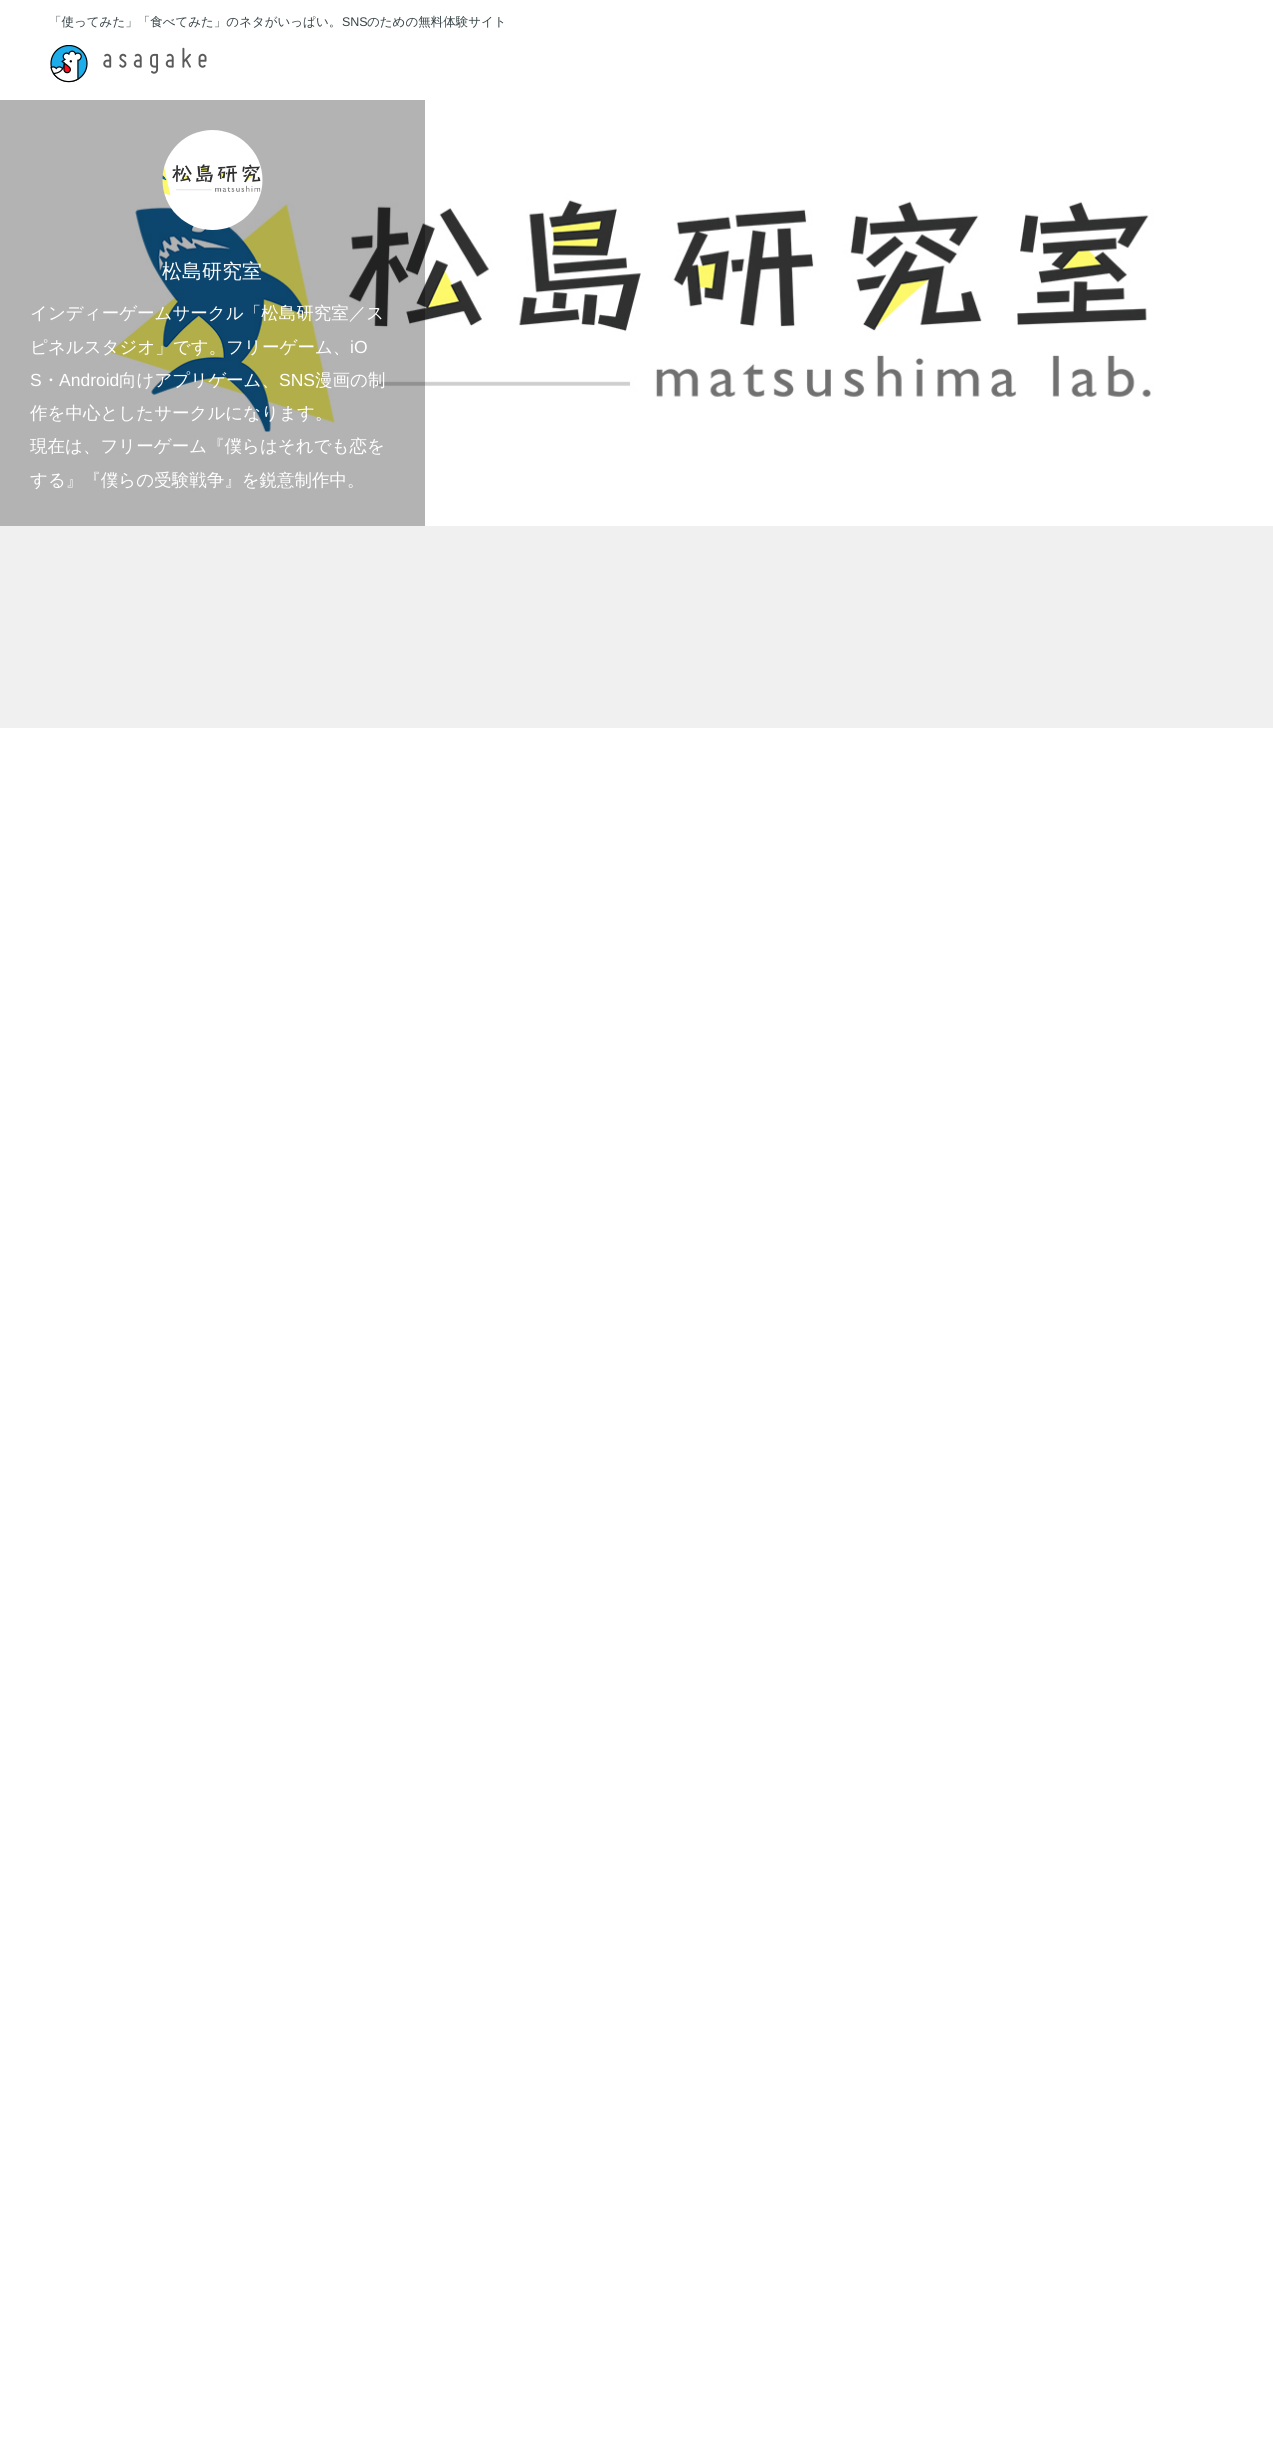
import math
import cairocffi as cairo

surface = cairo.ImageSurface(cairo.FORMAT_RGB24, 1273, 2439)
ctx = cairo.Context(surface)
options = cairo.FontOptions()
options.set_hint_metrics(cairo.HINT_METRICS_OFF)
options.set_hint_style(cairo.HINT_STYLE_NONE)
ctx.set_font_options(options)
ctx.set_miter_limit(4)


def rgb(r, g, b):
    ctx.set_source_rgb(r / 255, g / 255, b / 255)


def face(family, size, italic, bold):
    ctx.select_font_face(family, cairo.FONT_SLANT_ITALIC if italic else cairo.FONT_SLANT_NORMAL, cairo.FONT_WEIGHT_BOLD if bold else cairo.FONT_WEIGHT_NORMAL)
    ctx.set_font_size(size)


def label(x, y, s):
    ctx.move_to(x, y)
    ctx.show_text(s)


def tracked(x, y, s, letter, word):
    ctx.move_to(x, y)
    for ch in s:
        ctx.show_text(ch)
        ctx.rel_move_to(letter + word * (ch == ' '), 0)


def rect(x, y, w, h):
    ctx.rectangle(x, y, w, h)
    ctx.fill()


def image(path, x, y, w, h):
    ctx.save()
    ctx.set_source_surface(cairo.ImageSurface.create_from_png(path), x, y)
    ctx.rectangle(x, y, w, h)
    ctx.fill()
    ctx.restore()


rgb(255, 255, 255)
ctx.paint()
rgb(240, 240, 240)
rect(0, 526, 1273, 202)
face('WenQuanYi Zen Hei Medium', 12.5, 0, 0)
rgb(54, 67, 71)
label(49, 26, '「使ってみた」「食べてみた」のネタがいっぱい。')
face('Liberation Sans', 12.5, 0, 0)
label(342, 26, 'SNS')
face('WenQuanYi Zen Hei Medium', 12.5, 0, 0)
label(367, 26, 'のための無料体験サイト')
image('image0.png', 50, 45, 38, 38)
face('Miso', 30, 0, 1)
rgb(89, 89, 89)
tracked(102, 68, 'asagake', 5, 0)
image('image1.png', 0, 100, 1273, 426)
ctx.set_source_rgba(0, 0, 0, 0.3)
rect(0, 100, 425, 426)
image('image2.png', 162, 130, 101, 100)
face('WenQuanYi Zen Hei Medium', 20, 0, 0)
rgb(255, 255, 255)
label(162, 278, '松島研究室')
face('WenQuanYi Zen Hei Medium', 17.5, 0, 0)
label(30, 319, 'インディーゲームサークル「松島研究室／ス')
label(30, 353, 'ピネルスタジオ」です。フリーゲーム、')
face('Liberation Sans', 17.5, 0, 0)
label(350, 353, 'iO')
label(30, 386, 'S')
face('WenQuanYi Zen Hei Medium', 17.5, 0, 0)
label(42, 386, '・')
face('Liberation Sans', 17.5, 0, 0)
label(59, 386, 'Android')
face('WenQuanYi Zen Hei Medium', 17.5, 0, 0)
label(119, 386, '向けアプリゲーム、')
face('Liberation Sans', 17.5, 0, 0)
label(279, 386, 'SNS')
face('WenQuanYi Zen Hei Medium', 17.5, 0, 0)
label(315, 386, '漫画の制')
label(30, 419, '作を中心としたサークルになります。')
label(30, 452, '現在は、フリーゲーム『僕らはそれでも恋を')
label(30, 486, 'する』『僕らの受験戦争』を鋭意制作中。')
surface.write_to_png('render.png')
